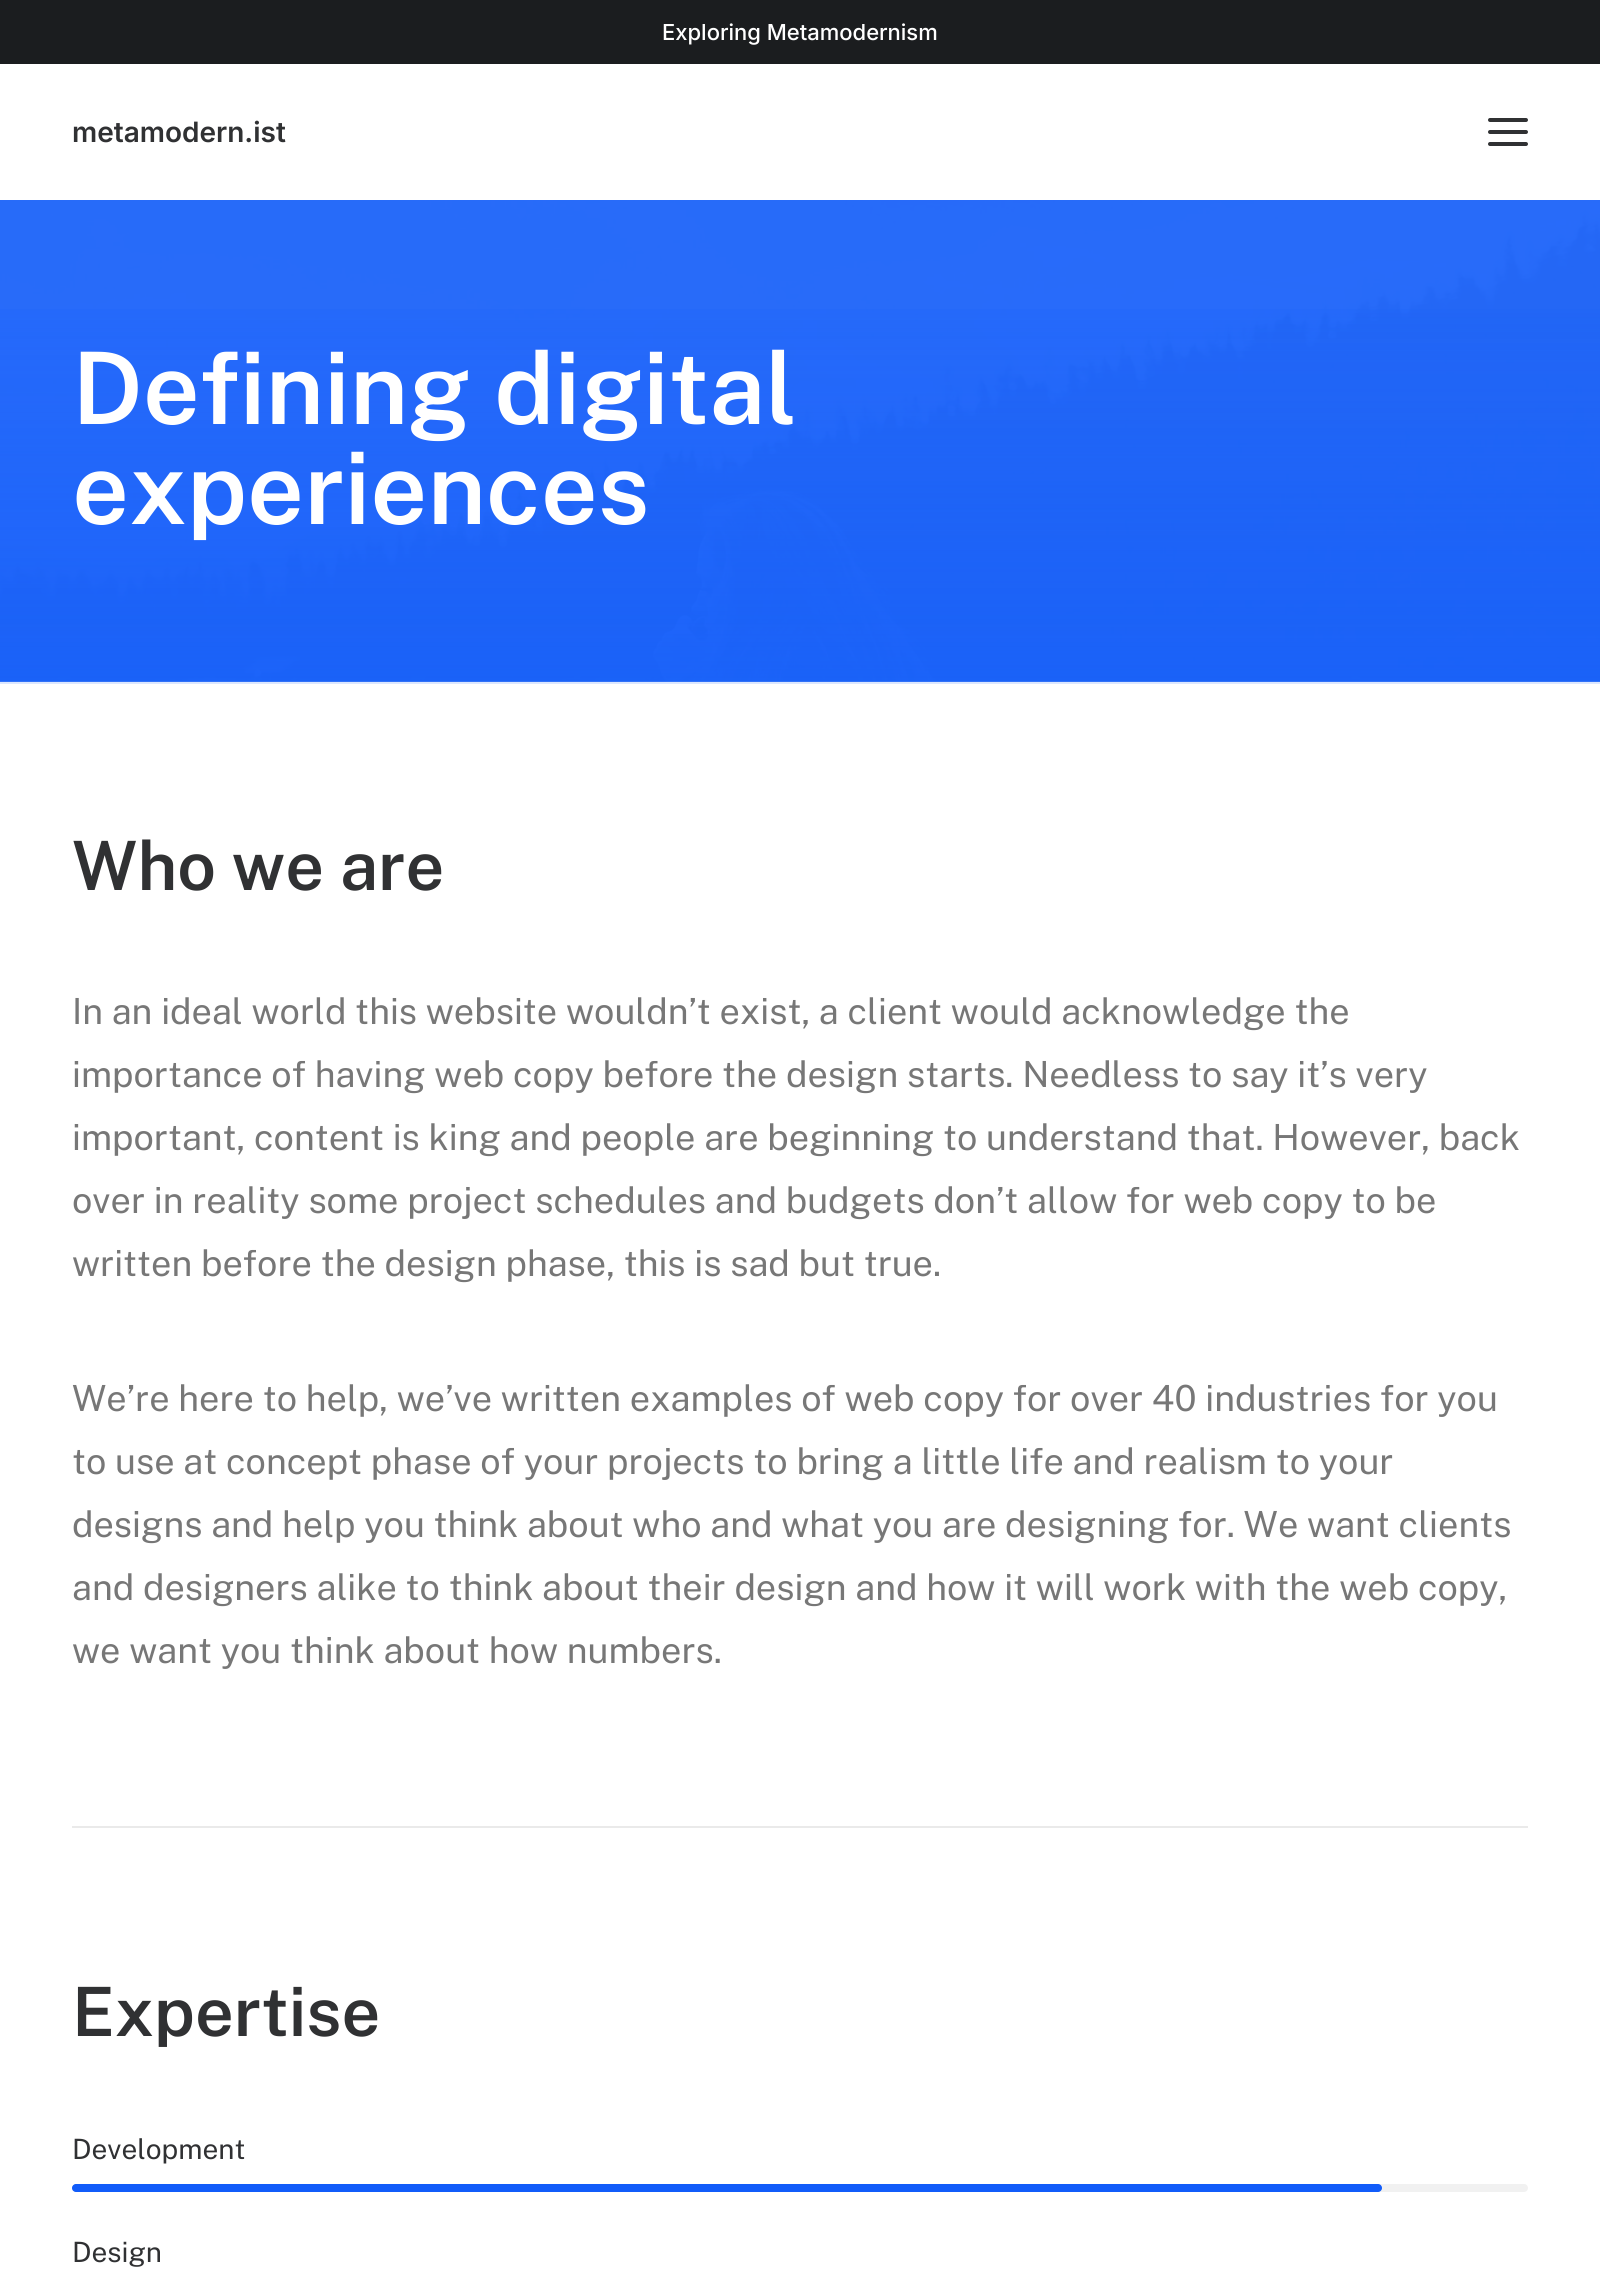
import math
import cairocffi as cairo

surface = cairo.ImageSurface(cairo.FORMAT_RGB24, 1600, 2280)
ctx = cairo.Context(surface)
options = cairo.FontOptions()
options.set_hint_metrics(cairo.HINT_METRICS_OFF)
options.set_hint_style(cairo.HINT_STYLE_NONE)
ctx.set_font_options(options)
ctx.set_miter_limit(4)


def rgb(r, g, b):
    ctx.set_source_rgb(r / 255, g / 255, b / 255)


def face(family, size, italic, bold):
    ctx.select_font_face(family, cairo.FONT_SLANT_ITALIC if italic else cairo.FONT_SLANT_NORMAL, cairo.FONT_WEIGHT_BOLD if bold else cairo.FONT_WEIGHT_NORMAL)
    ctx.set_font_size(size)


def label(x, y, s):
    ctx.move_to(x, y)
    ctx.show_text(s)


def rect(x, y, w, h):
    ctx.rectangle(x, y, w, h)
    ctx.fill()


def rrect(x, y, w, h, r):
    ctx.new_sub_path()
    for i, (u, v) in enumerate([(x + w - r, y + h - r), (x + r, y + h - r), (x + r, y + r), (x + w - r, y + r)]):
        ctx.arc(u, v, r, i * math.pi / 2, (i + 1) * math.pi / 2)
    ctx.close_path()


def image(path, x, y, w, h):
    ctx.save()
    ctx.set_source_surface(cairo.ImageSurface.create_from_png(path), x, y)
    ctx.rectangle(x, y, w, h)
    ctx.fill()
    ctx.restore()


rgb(255, 255, 255)
ctx.paint()
rgb(27, 29, 31)
rect(0, 0, 1600, 64)
face('Inter Medium', 22, 0, 0)
rgb(255, 255, 255)
label(662, 40, 'Exploring Metamodernism')
face('Inter SemiBold', 28, 0, 0)
rgb(48, 49, 51)
label(72, 142, 'metamodern.ist')
rrect(1488, 130, 40, 4, 2)
ctx.fill()
rrect(1488, 118, 40, 4, 2)
ctx.fill()
rrect(1488, 142, 40, 4, 2)
ctx.fill()
image('image0.png', 0, 200, 1600, 482)
gradient = cairo.LinearGradient(800, 196, 800, 684)
gradient.add_color_stop_rgba(0, 0.067, 0.361, 0.98, 0)
gradient.add_color_stop_rgba(1, 0.067, 0.361, 0.98, 0.5)
ctx.set_source(gradient)
rect(0, 309, 1600, 375)
face('Public Sans SemiBold', 100, 0, 0)
rgb(255, 255, 255)
label(72, 424, 'Defining digital')
label(72, 524, 'experiences')
ctx.set_source_rgba(1, 1, 1, 0.7)
rect(0, 682, 1600, 2)
face('Public Sans SemiBold', 68, 0, 0)
rgb(48, 49, 51)
label(72, 890, 'Who we are')
face('Public Sans', 36, 0, 0)
rgb(119, 119, 119)
label(72, 1024, 'In an ideal world this website wouldn’t exist, a client would acknowledge the')
label(72, 1087, 'importance of having web copy before the design starts. Needless to say it’s very')
label(72, 1150, 'important, content is king and people are beginning to understand that. However, back')
label(72, 1213, 'over in reality some project schedules and budgets don’t allow for web copy to be')
label(72, 1276, 'written before the design phase, this is sad but true.')
label(72, 1411, 'We’re here to help, we’ve written examples of web copy for over 40 industries for you')
label(72, 1474, 'to use at concept phase of your projects to bring a little life and realism to your')
label(72, 1537, 'designs and help you think about who and what you are designing for. We want clients')
label(72, 1600, 'and designers alike to think about their design and how it will work with the web copy,')
label(72, 1663, 'we want you think about how numbers.')
rgb(234, 234, 234)
rect(72, 1826, 1456, 2)
face('Public Sans SemiBold', 68, 0, 0)
rgb(48, 49, 51)
label(72, 2036, 'Expertise')
face('Public Sans', 28, 0, 0)
label(72, 2159, 'Development')
rgb(241, 241, 241)
rrect(72, 2184, 1456, 8, 4)
ctx.fill()
rgb(17, 92, 250)
rrect(72, 2184, 1310, 8, 4)
ctx.fill()
rgb(48, 49, 51)
label(72, 2262, 'Design')
surface.write_to_png('render.png')
